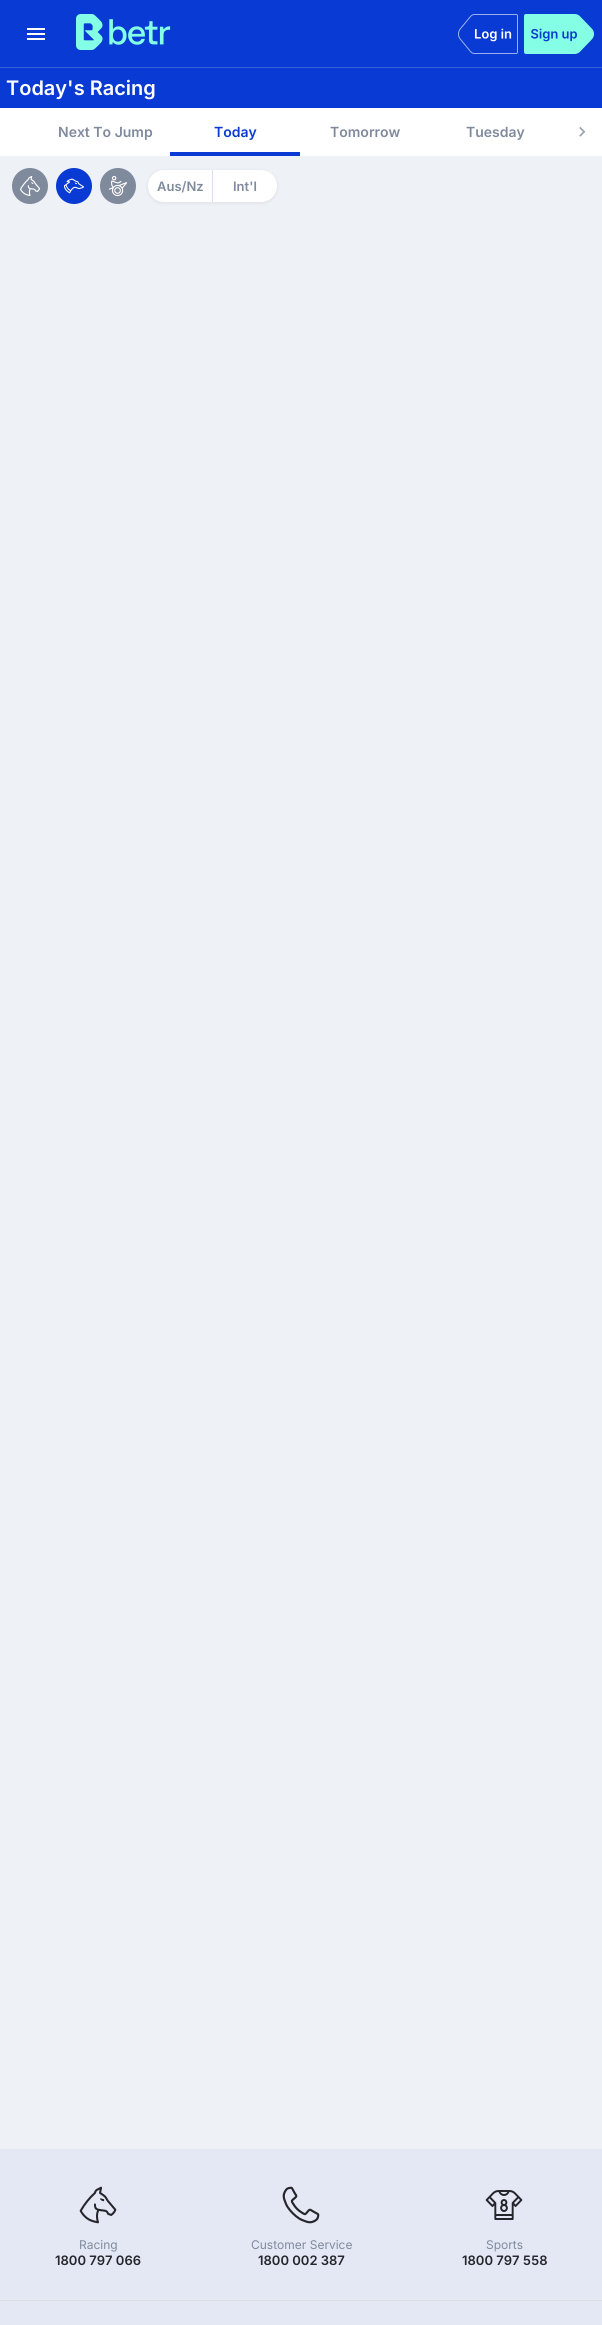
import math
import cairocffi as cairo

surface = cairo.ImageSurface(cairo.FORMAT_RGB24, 602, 2325)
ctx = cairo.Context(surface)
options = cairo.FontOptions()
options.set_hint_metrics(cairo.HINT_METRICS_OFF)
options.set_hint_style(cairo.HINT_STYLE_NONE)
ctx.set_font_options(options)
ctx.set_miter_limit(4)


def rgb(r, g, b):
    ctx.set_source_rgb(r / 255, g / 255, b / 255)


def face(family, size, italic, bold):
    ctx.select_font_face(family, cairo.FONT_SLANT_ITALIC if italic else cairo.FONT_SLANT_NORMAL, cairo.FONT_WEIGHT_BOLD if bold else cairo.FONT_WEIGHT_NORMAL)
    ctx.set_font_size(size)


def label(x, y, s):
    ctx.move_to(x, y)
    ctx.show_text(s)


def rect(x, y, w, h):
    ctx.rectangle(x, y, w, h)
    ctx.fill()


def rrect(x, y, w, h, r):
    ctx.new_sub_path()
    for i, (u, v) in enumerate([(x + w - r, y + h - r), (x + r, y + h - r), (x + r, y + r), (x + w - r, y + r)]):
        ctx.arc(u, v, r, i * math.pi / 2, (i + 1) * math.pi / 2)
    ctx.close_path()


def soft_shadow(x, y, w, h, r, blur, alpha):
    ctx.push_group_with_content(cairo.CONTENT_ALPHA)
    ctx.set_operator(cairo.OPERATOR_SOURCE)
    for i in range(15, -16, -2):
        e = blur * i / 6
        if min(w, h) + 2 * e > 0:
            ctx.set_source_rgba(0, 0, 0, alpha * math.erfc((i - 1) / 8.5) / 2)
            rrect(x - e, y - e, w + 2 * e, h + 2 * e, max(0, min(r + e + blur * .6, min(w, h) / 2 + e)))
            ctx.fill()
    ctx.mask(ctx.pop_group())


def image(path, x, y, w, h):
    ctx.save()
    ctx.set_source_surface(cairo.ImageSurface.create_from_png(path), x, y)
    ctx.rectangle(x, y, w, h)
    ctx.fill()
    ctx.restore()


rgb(238, 241, 246)
ctx.paint()
rgb(9, 58, 211)
rect(0, 0, 602, 67)
rgb(58, 97, 220)
rect(0, 67, 602, 1)
image('image0.png', 27, 28, 18, 12)
image('image1.png', 76, 14, 95, 36)
image('image2.png', 458, 14, 60, 40)
image('image3.png', 524, 14, 70, 40)
rgb(9, 58, 211)
rect(0, 68, 602, 40)
face('Inter SemiBold', 20, 0, 0)
rgb(255, 255, 255)
label(6, 95, 'Today\'s Racing')
rect(0, 108, 602, 48)
face('Inter SemiBold', 14, 0, 0)
rgb(128, 138, 157)
label(58, 137, 'Next To Jump')
rgb(9, 58, 211)
label(214, 137, 'Today')
rgb(128, 138, 157)
label(330, 137, 'Tomorrow')
label(466, 137, 'Tuesday')
rgb(9, 58, 211)
rect(170, 152, 130, 4)
image('image4.png', 579, 126, 7, 11)
rgb(128, 138, 157)
ctx.arc(30, 186, 18, 0, 2 * math.pi)
ctx.fill()
image('image5.png', 20, 176, 20, 20)
rgb(9, 58, 211)
ctx.arc(74, 186, 18, 0, 2 * math.pi)
ctx.fill()
image('image6.png', 64, 178, 20, 16)
rgb(128, 138, 157)
ctx.arc(118, 186, 18, 0, 2 * math.pi)
ctx.fill()
image('image7.png', 108, 176, 20, 21)
rgb(0, 0, 0)
soft_shadow(148, 171, 129, 32, 16, 2, 0.08)
rgb(255, 255, 255)
ctx.new_path()
ctx.move_to(164, 170)
ctx.line_to(213, 170)
ctx.line_to(213, 202)
ctx.line_to(164, 202)
ctx.curve_to(155, 202, 148, 195, 148, 186)
ctx.curve_to(148, 177, 155, 170, 164, 170)
ctx.close_path()
ctx.fill()
face('Inter SemiBold', 13, 0, 0)
rgb(128, 138, 157)
label(157, 191, 'Aus/Nz')
rgb(255, 255, 255)
ctx.new_path()
ctx.move_to(212, 170)
ctx.line_to(261, 170)
ctx.curve_to(270, 170, 277, 177, 277, 186)
ctx.curve_to(277, 195, 270, 202, 261, 202)
ctx.line_to(212, 202)
ctx.close_path()
ctx.fill()
rgb(220, 223, 244)
rect(212, 170, 1, 32)
rgb(128, 138, 157)
label(233, 191, 'Int\'l')
rgb(228, 232, 245)
rect(0, 2149, 602, 176)
image('image8.png', 79, 2186, 38, 38)
face('Inter', 12, 0, 0)
rgb(128, 138, 157)
label(79, 2249, 'Racing')
face('Inter SemiBold', 13, 0, 0)
rgb(35, 38, 43)
label(55, 2265, '1800 797 066')
image('image9.png', 282, 2186, 38, 38)
face('Inter', 12, 0, 0)
rgb(128, 138, 157)
label(251, 2249, 'Customer Service')
face('Inter SemiBold', 13, 0, 0)
rgb(35, 38, 43)
label(258, 2265, '1800 002 387')
image('image10.png', 485, 2190, 38, 30)
face('Inter', 12, 0, 0)
rgb(128, 138, 157)
label(486, 2249, 'Sports')
face('Inter SemiBold', 13, 0, 0)
rgb(35, 38, 43)
label(462, 2265, '1800 797 558')
rgb(220, 223, 228)
rect(0, 2300, 602, 1)
surface.write_to_png('render.png')
